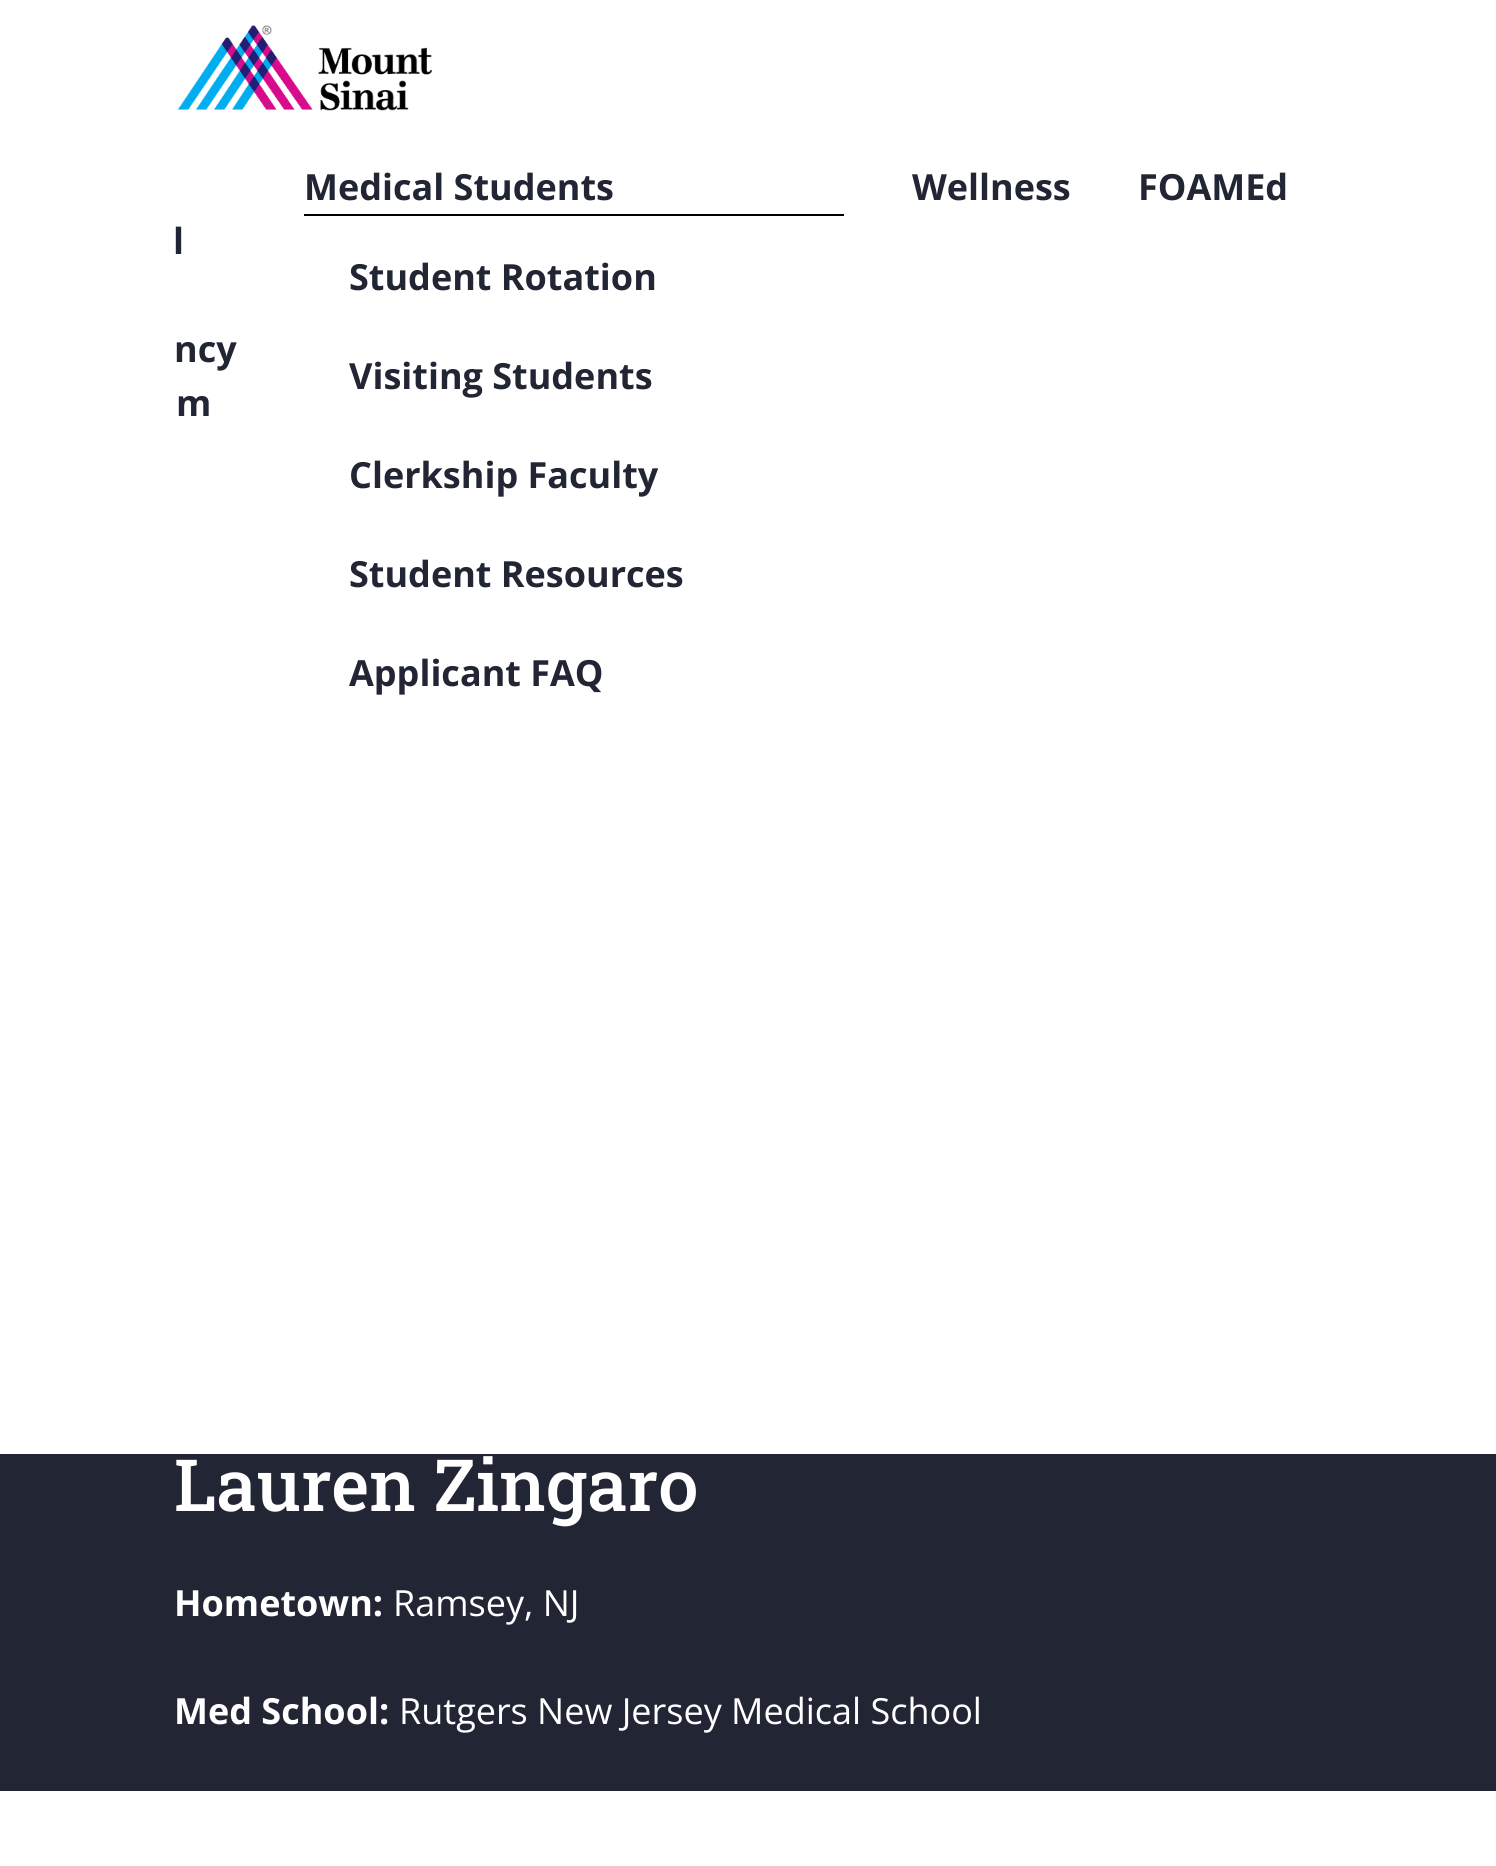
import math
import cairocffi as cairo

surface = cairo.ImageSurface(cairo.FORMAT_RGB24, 1496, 1866)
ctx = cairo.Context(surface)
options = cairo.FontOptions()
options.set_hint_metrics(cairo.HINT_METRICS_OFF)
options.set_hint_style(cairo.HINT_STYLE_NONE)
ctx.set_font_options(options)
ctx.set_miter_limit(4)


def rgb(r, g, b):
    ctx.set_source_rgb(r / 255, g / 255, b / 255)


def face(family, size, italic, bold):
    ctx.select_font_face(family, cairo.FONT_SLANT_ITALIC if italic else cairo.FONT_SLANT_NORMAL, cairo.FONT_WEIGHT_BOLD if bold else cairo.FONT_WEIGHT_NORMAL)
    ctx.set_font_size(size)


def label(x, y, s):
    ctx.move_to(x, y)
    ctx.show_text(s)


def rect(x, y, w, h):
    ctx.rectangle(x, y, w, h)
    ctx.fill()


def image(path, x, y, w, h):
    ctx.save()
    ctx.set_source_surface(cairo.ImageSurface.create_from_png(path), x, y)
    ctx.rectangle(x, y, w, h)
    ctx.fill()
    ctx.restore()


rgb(255, 255, 255)
ctx.paint()
image('image0.png', 177, 25, 256, 86)
rgb(0, 0, 0)
rect(304, 214, 540, 2)
face('Open Sans', 36, 0, 1)
rgb(34, 37, 52)
label(304, 200, 'Medical Students')
label(349, 290, 'Student Rotation')
label(349, 389, 'Visiting Students')
label(349, 488, 'Clerkship Faculty')
label(349, 587, 'Student Resources')
label(349, 686, 'Applicant FAQ')
label(912, 200, 'Wellness')
label(1138, 200, 'FOAMEd')
label(173, 254, 'l')
label(174, 362, 'ncy')
label(176, 416, 'm')
rect(0, 1454, 1496, 337)
face('Roboto Slab Medium', 72, 0, 0)
rgb(255, 255, 255)
label(174, 1511, 'Lauren Zingaro')
face('Open Sans', 36, 0, 1)
label(174, 1616, 'Hometown:')
face('Open Sans', 36, 0, 0)
label(393, 1616, 'Ramsey, NJ')
face('Open Sans', 36, 0, 1)
label(174, 1724, 'Med School:')
face('Open Sans', 36, 0, 0)
label(399, 1724, 'Rutgers New Jersey Medical School')
surface.write_to_png('render.png')
